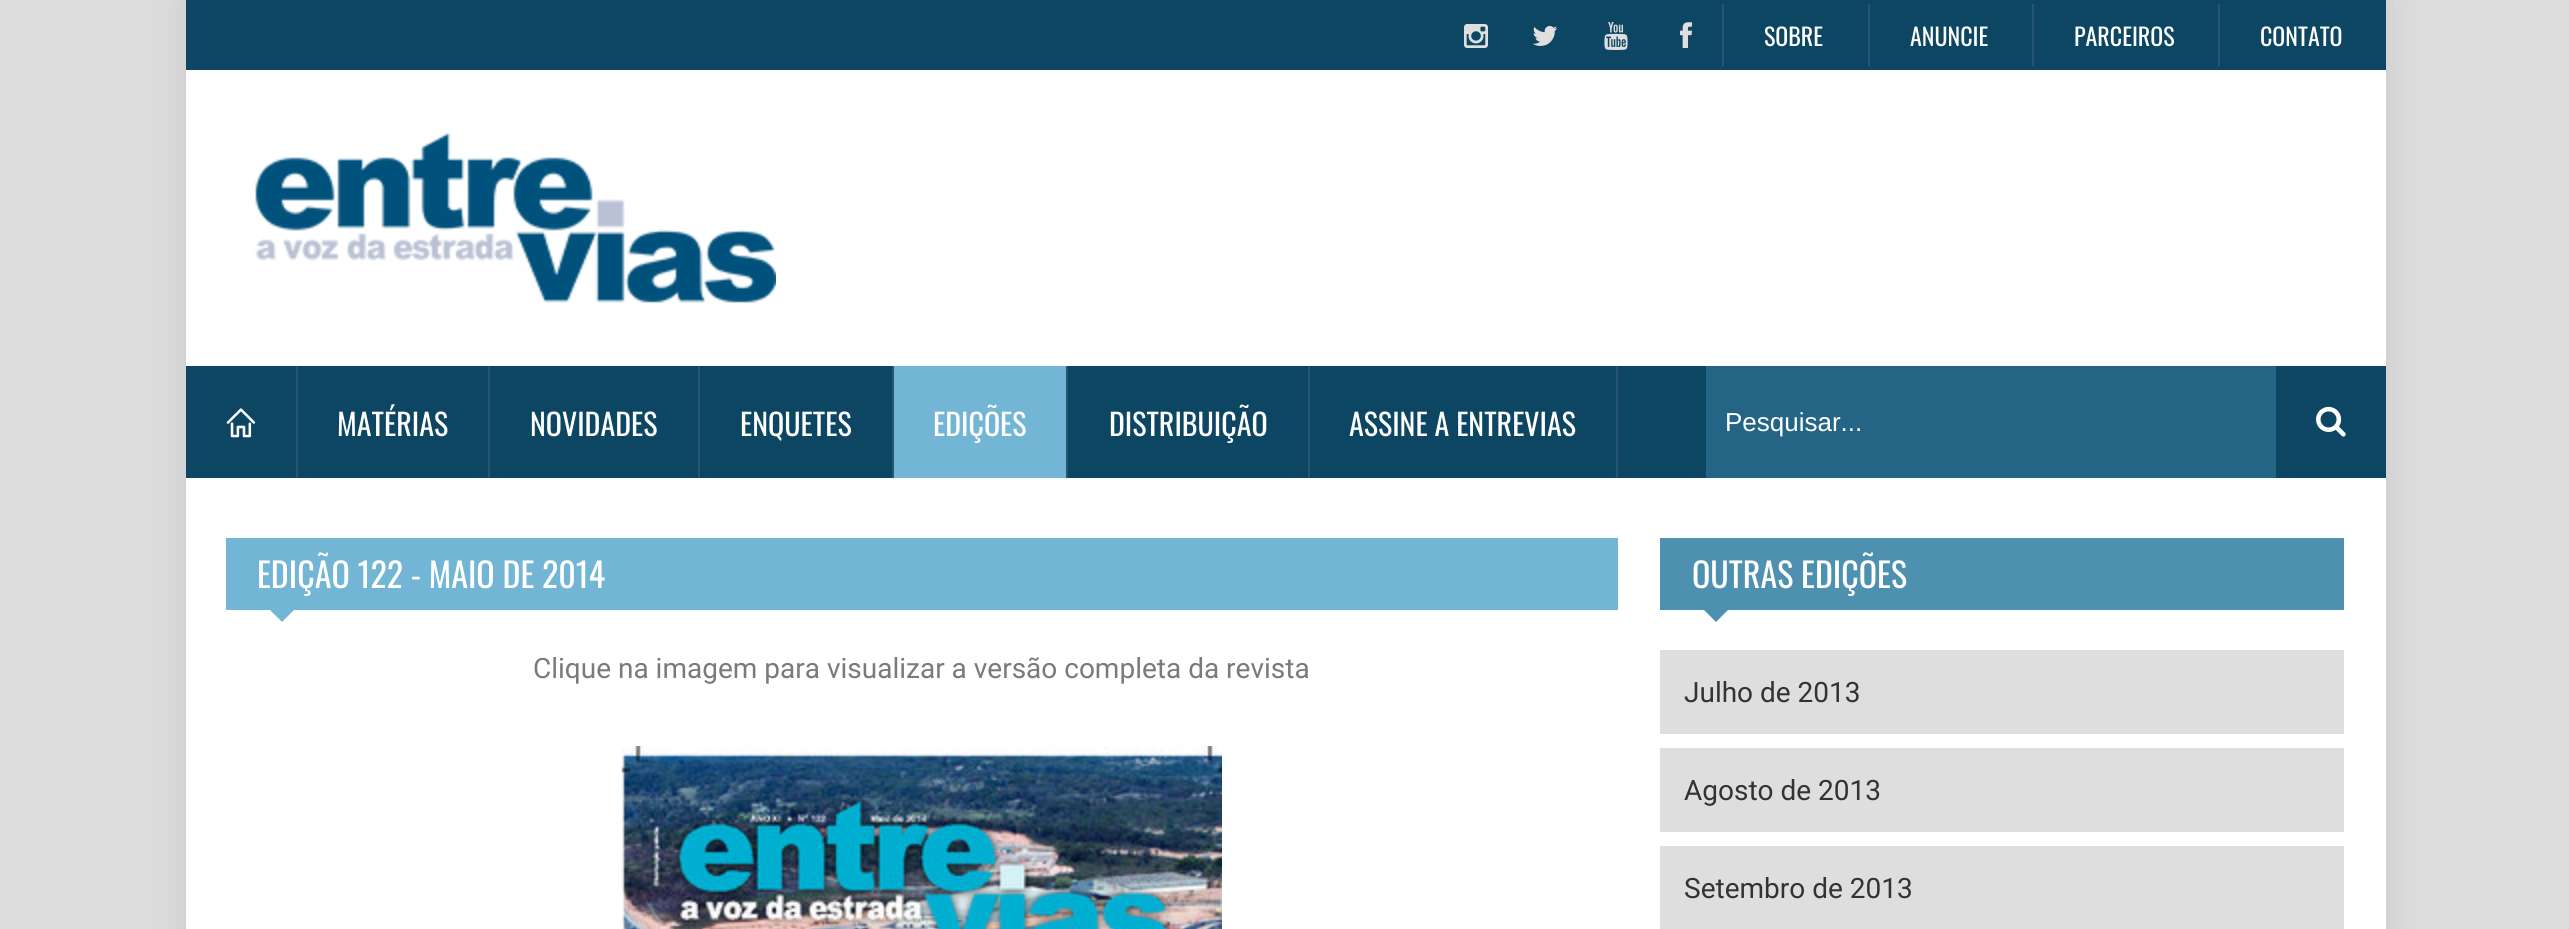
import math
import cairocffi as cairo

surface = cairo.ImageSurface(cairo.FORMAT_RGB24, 2569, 929)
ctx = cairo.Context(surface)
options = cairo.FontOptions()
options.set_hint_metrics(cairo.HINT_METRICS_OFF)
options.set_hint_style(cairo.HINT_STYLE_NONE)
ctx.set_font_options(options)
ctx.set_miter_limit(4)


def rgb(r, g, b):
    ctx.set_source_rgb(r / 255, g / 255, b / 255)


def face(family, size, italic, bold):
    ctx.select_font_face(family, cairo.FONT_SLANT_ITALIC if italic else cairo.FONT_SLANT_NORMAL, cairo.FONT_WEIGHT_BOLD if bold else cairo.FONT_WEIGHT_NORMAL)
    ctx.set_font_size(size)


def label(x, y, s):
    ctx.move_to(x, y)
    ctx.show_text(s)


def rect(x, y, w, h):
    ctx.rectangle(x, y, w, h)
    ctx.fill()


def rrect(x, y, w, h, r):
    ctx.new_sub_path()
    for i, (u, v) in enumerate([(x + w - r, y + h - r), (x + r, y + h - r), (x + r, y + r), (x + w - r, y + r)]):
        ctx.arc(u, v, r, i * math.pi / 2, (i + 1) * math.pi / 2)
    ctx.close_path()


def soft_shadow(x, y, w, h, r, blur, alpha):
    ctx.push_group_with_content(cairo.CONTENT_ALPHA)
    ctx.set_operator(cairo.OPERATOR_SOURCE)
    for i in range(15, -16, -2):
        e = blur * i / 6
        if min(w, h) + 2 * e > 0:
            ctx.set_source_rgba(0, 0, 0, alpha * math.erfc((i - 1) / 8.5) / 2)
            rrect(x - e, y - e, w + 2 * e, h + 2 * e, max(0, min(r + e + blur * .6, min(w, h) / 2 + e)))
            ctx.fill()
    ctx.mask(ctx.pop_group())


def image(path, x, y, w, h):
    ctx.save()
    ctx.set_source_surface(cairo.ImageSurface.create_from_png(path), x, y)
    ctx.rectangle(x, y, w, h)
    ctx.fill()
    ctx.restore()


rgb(221, 221, 221)
ctx.paint()
rgb(0, 0, 0)
soft_shadow(186, 0, 2200, 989, 0, 20, 0.1)
rgb(255, 255, 255)
rect(186, 70, 2200, 859)
rgb(12, 70, 99)
rect(186, 0, 2200, 70)
image('image0.png', 1464, 24, 24, 24)
image('image1.png', 1532, 26, 26, 20)
image('image2.png', 1604, 22, 24, 28)
image('image3.png', 1680, 22, 12, 26)
face('Oswald', 24, 0, 0)
rgb(255, 255, 255)
label(1764, 46, 'SOBRE')
rgb(39, 86, 115)
rect(1722, 4, 2, 62)
rgb(255, 255, 255)
label(1910, 46, 'ANUNCIE')
rgb(39, 86, 115)
rect(1868, 4, 2, 62)
rgb(255, 255, 255)
label(2074, 46, 'PARCEIROS')
rgb(39, 86, 115)
rect(2032, 4, 2, 62)
rgb(255, 255, 255)
label(2260, 46, 'CONTATO')
rgb(39, 86, 115)
rect(2218, 4, 2, 62)
image('image4.png', 255, 133, 521, 170)
rgb(12, 70, 99)
rect(186, 366, 2200, 112)
rgb(39, 86, 115)
rect(296, 366, 2, 112)
image('image5.png', 226, 408, 30, 30)
rect(488, 366, 2, 112)
face('Oswald', 30, 0, 0)
rgb(255, 255, 255)
label(337, 436, 'MATÉRIAS')
rgb(39, 86, 115)
rect(698, 366, 2, 112)
rgb(255, 255, 255)
label(530, 436, 'NOVIDADES')
rgb(39, 86, 115)
rect(892, 366, 2, 112)
rgb(255, 255, 255)
label(740, 436, 'ENQUETES')
rgb(114, 181, 213)
rect(894, 366, 172, 112)
rgb(39, 86, 115)
rect(1066, 366, 2, 112)
rgb(255, 255, 255)
label(933, 436, 'EDIÇÕES')
rgb(39, 86, 115)
rect(1308, 366, 2, 112)
rgb(255, 255, 255)
label(1109, 436, 'DISTRIBUIÇÃO')
rgb(39, 86, 115)
rect(1616, 366, 2, 112)
rgb(255, 255, 255)
label(1349, 436, 'ASSINE A ENTREVIAS')
rgb(36, 101, 133)
rect(1706, 366, 570, 112)
face('Liberation Sans', 26, 0, 0)
rgb(255, 255, 255)
label(1725, 431, 'Pesquisar...')
image('image6.png', 2316, 406, 30, 31)
rgb(114, 181, 213)
rect(226, 538, 1392, 72)
face('Oswald', 34, 0, 0)
rgb(255, 255, 255)
label(257, 588, 'EDIÇÃO 122 - MAIO DE 2014')
rgb(114, 181, 213)
ctx.new_path()
ctx.move_to(270, 610)
ctx.line_to(294, 610)
ctx.line_to(282, 622)
ctx.close_path()
ctx.fill()
face('Roboto', 28, 0, 0)
rgb(122, 122, 122)
label(533, 678, 'Clique na imagem para visualizar a versão completa da revista')
image('image7.png', 621, 746, 601, 183)
rgb(77, 144, 176)
rect(1660, 538, 684, 72)
face('Oswald', 34, 0, 0)
rgb(255, 255, 255)
label(1692, 588, 'OUTRAS EDIÇÕES')
rgb(77, 144, 176)
ctx.new_path()
ctx.move_to(1704, 610)
ctx.line_to(1728, 610)
ctx.line_to(1716, 622)
ctx.close_path()
ctx.fill()
rgb(222, 222, 222)
rect(1660, 650, 684, 84)
face('Roboto', 28, 0, 0)
rgb(51, 51, 51)
label(1684, 702, 'Julho de 2013')
rgb(222, 222, 222)
rect(1660, 748, 684, 84)
rgb(51, 51, 51)
label(1684, 800, 'Agosto de 2013')
rgb(222, 222, 222)
rect(1660, 846, 684, 83)
rgb(51, 51, 51)
label(1684, 898, 'Setembro de 2013')
surface.write_to_png('render.png')
